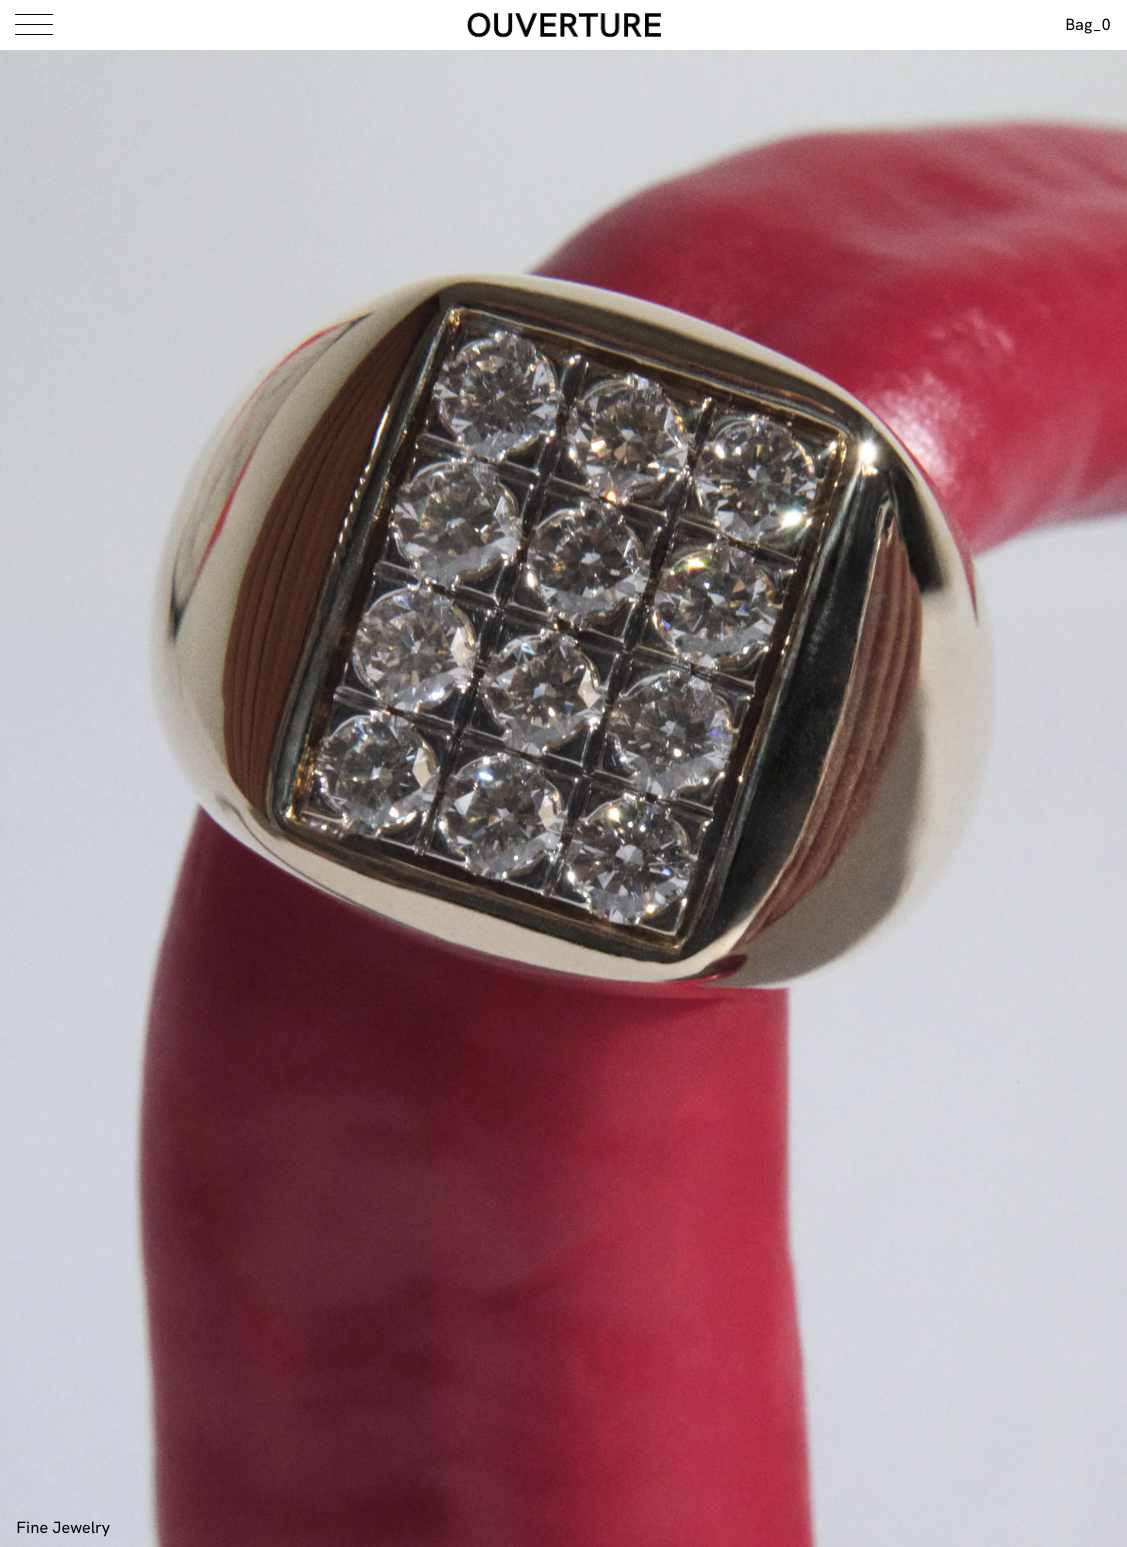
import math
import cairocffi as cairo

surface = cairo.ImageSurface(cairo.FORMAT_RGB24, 1127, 1547)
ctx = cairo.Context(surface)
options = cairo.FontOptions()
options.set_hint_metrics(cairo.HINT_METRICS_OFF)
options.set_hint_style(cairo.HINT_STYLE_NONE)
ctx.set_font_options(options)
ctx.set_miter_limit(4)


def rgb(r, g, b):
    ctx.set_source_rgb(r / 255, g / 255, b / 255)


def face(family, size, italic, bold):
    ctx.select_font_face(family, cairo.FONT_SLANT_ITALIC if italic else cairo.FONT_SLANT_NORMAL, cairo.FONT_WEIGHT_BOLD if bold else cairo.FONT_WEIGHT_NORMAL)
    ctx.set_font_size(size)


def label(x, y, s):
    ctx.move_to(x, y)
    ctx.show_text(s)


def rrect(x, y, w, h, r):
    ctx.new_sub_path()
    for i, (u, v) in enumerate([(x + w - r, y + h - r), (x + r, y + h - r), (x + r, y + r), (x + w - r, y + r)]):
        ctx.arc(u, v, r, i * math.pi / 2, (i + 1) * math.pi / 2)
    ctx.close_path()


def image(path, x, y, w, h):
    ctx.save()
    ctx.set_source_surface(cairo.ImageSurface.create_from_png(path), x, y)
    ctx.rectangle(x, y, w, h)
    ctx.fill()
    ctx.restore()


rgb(255, 255, 255)
ctx.paint()
rgb(0, 0, 0)
rrect(15, 14, 38, 1, 0.5)
ctx.fill()
rrect(15, 24, 38, 1, 0.5)
ctx.fill()
rrect(15, 34, 38, 1, 0.5)
ctx.fill()
image('image0.png', 467, 12, 194, 26)
face('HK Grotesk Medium', 16.25, 0, 0)
label(1065, 30, 'Bag_0')
image('image1.png', 0, 50, 1127, 1497)
label(16, 1533, 'Fine Jewelry')
surface.write_to_png('render.png')
